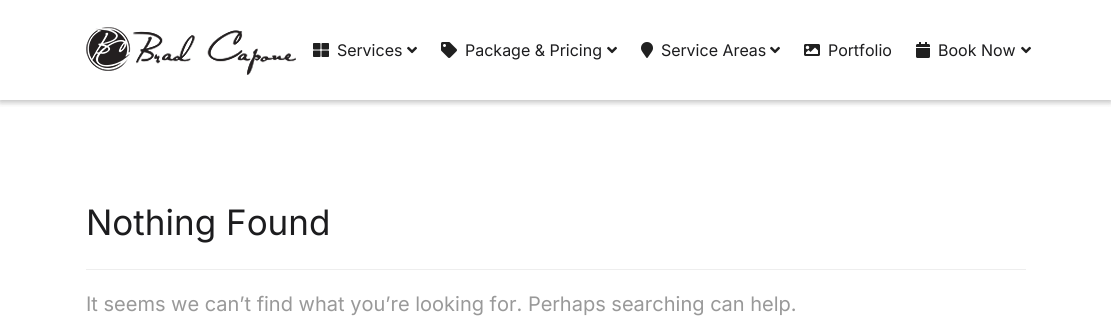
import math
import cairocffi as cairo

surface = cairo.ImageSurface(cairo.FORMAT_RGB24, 1111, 317)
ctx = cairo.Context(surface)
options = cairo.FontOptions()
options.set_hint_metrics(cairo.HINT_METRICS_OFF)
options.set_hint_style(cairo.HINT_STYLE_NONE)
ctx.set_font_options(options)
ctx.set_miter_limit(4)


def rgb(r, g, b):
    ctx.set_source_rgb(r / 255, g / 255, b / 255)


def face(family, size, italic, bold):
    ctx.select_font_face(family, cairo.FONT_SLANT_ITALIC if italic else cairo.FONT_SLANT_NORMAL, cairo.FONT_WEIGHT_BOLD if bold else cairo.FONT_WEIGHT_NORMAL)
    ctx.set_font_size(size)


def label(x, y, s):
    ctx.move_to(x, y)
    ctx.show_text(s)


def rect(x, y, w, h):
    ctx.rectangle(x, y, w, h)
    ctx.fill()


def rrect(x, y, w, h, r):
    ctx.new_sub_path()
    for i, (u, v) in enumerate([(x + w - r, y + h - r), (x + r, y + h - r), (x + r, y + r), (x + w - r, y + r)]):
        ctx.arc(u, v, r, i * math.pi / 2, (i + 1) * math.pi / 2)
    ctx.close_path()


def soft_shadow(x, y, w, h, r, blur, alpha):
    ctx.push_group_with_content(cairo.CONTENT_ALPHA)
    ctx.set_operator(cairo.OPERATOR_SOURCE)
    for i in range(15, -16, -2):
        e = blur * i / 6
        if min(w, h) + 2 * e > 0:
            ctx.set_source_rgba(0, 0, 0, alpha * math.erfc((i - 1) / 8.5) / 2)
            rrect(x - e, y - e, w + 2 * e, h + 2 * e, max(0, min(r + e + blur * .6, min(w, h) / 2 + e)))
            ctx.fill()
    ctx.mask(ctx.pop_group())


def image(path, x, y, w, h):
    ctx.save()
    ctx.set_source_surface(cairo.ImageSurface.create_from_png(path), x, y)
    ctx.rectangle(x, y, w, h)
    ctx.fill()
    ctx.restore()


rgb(255, 255, 255)
ctx.paint()
ctx.save()
ctx.rectangle(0, 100, 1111, 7)
ctx.clip()
rgb(0, 0, 0)
soft_shadow(0, 2, 1111, 100, 0, 5, 0.12)
ctx.restore()
ctx.save()
ctx.rectangle(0, 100, 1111, 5)
ctx.clip()
rgb(0, 0, 0)
soft_shadow(0, 2, 1111, 100, 0, 2.5, 0.16)
ctx.restore()
image('image0.png', 86, 27, 210, 48)
image('image1.png', 313, 43, 16, 14)
face('Inter', 16, 0, 0)
rgb(28, 28, 30)
label(337, 56, 'Services')
image('image2.png', 407, 46, 10, 8)
image('image3.png', 441, 42, 16, 16)
label(465, 56, 'Package & Pricing')
image('image2.png', 607, 46, 10, 8)
image('image4.png', 641, 42, 12, 16)
label(661, 56, 'Service Areas')
image('image2.png', 770, 46, 10, 8)
image('image5.png', 804, 44, 16, 12)
label(828, 56, 'Portfolio')
image('image6.png', 916, 42, 14, 16)
label(938, 56, 'Book Now')
image('image2.png', 1021, 46, 10, 8)
rgb(238, 238, 238)
rect(86, 269, 940, 1)
face('Inter', 35, 0, 0)
rgb(28, 28, 30)
label(86, 235, 'Nothing Found')
face('Inter', 20, 0, 0)
rgb(153, 153, 153)
label(86, 311, 'It seems we can’t find what you’re looking for. Perhaps searching can help.')
surface.write_to_png('render.png')
